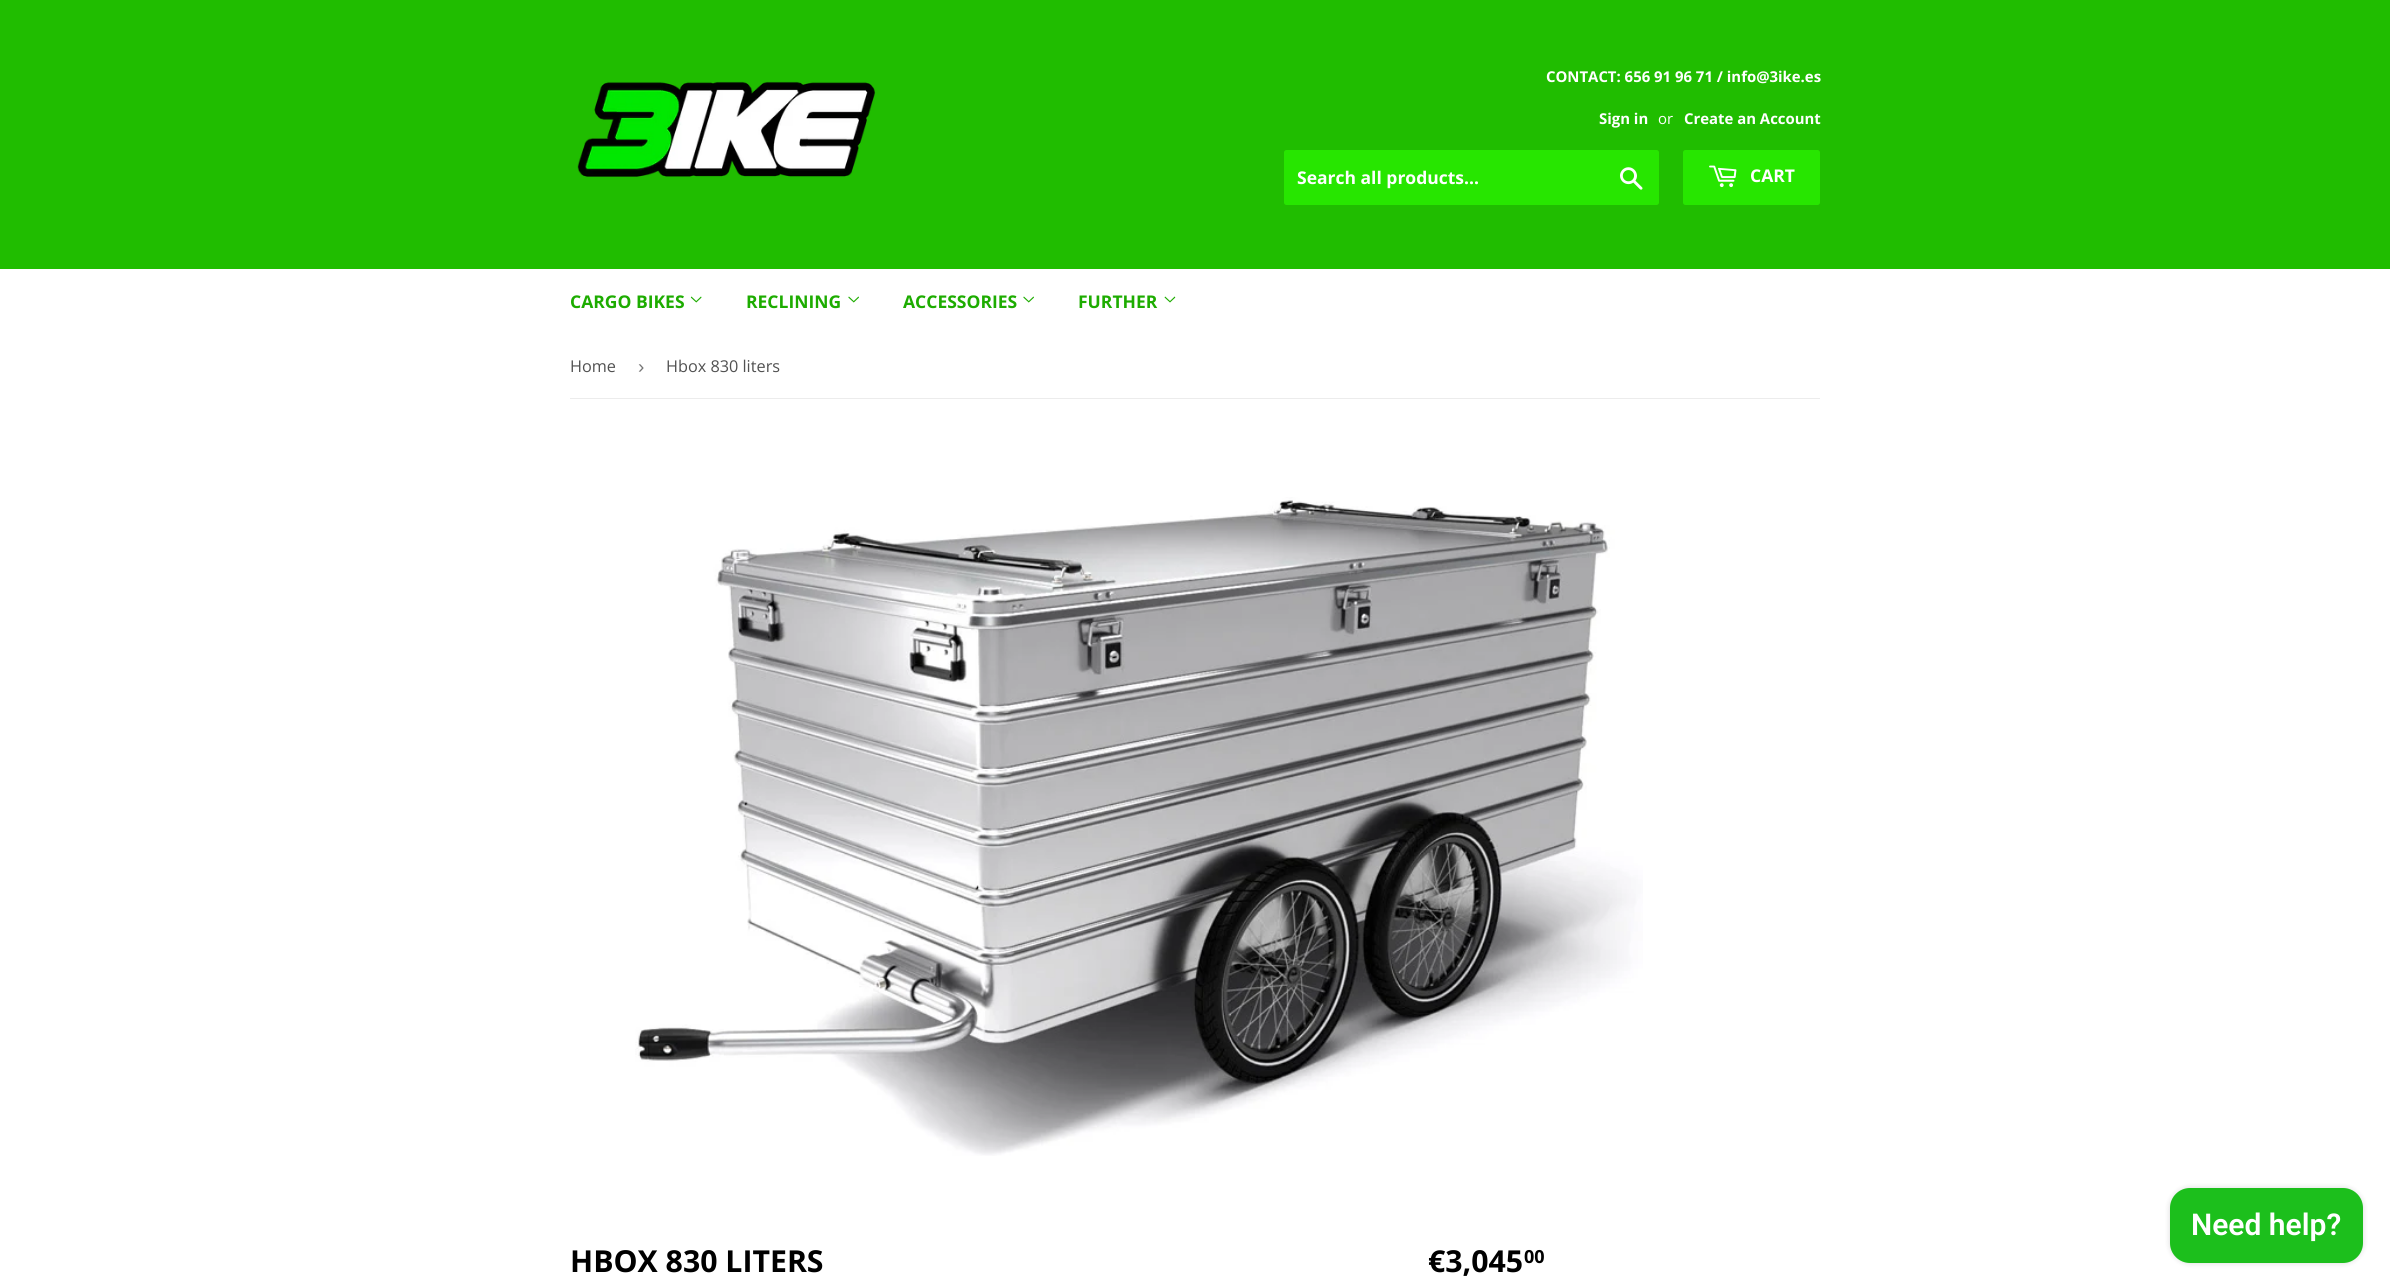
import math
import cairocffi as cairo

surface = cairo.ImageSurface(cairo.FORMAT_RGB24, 2390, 1288)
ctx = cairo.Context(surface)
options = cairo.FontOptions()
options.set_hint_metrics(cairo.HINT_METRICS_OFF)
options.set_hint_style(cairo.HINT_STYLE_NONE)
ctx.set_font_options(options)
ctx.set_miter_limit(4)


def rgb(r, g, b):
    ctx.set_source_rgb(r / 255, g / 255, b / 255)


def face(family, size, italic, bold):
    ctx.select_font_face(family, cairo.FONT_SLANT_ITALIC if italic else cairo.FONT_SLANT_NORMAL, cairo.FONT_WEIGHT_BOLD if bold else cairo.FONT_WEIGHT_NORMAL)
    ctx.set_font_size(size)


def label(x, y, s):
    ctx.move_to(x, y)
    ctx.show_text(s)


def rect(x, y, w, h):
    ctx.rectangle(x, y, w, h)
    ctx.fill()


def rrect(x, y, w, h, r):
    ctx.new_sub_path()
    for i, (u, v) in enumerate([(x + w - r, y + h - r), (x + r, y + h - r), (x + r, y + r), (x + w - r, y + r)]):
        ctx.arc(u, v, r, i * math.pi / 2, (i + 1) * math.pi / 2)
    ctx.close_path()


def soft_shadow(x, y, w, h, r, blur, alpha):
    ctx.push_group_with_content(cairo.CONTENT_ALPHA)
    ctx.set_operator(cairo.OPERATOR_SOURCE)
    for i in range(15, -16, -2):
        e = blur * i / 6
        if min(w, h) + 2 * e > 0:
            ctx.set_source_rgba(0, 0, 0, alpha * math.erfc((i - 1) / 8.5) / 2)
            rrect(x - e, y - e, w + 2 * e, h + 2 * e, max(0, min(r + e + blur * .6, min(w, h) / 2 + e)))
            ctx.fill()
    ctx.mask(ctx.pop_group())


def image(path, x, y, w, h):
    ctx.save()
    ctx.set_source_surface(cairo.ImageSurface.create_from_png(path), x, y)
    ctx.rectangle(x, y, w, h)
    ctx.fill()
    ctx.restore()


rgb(255, 255, 255)
ctx.paint()
rgb(32, 189, 0)
rect(0, 0, 2390, 269)
image('image0.png', 577, 81, 299, 96)
face('Open Sans', 14.9, 0, 1)
rgb(255, 255, 255)
label(1546, 82, 'CONTACT: 656 91 96 71 / info@3ike.es')
label(1599, 124, 'Sign in')
face('Open Sans', 14.9, 0, 0)
label(1658, 124, 'or')
face('Open Sans', 14.9, 0, 1)
label(1684, 124, 'Create an Account')
rgb(39, 230, 0)
rrect(1284, 150, 375, 55, 2.5)
ctx.fill()
face('Open Sans', 17.5, 0, 1)
rgb(255, 255, 255)
label(1297, 184, 'Search all products...')
image('image1.png', 1620, 167, 23, 23)
rgb(39, 230, 0)
rrect(1683, 150, 137, 55, 2.5)
ctx.fill()
image('image2.png', 1709, 165, 28, 23)
rgb(255, 255, 255)
label(1750, 182, 'CART')
rgb(29, 172, 0)
label(570, 308, 'CARGO BIKES')
image('image3.png', 690, 296, 12, 7)
label(746, 308, 'RECLINING')
image('image4.png', 848, 296, 11, 7)
label(903, 308, 'ACCESSORIES')
image('image4.png', 1023, 296, 11, 7)
label(1078, 308, 'FURTHER')
image('image5.png', 1164, 296, 12, 7)
rgb(236, 236, 236)
rect(570, 398, 1250, 1)
face('Open Sans', 16.25, 0, 0)
rgb(81, 81, 81)
label(570, 372, 'Home')
face('Liberation Sans', 19, 0, 0)
rgb(118, 118, 118)
label(638, 373, '›')
face('Open Sans', 16.25, 0, 0)
rgb(81, 81, 81)
label(666, 372, 'Hbox 830 liters')
image('image6.png', 635, 497, 1008, 659)
face('Open Sans', 30.25, 0, 1)
rgb(0, 0, 0)
label(570, 1272, 'HBOX 830 LITERS')
label(1428, 1272, '€3,045')
face('Open Sans', 18, 0, 1)
label(1524, 1263, '00')
rgb(0, 0, 0)
soft_shadow(2170, 1188, 193, 75, 20, 3, 0.15)
rgb(28, 191, 28)
rrect(2170, 1188, 193, 75, 20)
ctx.fill()
face('Roboto SemiBold', 30, 0, 0)
rgb(255, 255, 255)
label(2191, 1235, 'Need help?')
surface.write_to_png('render.png')
